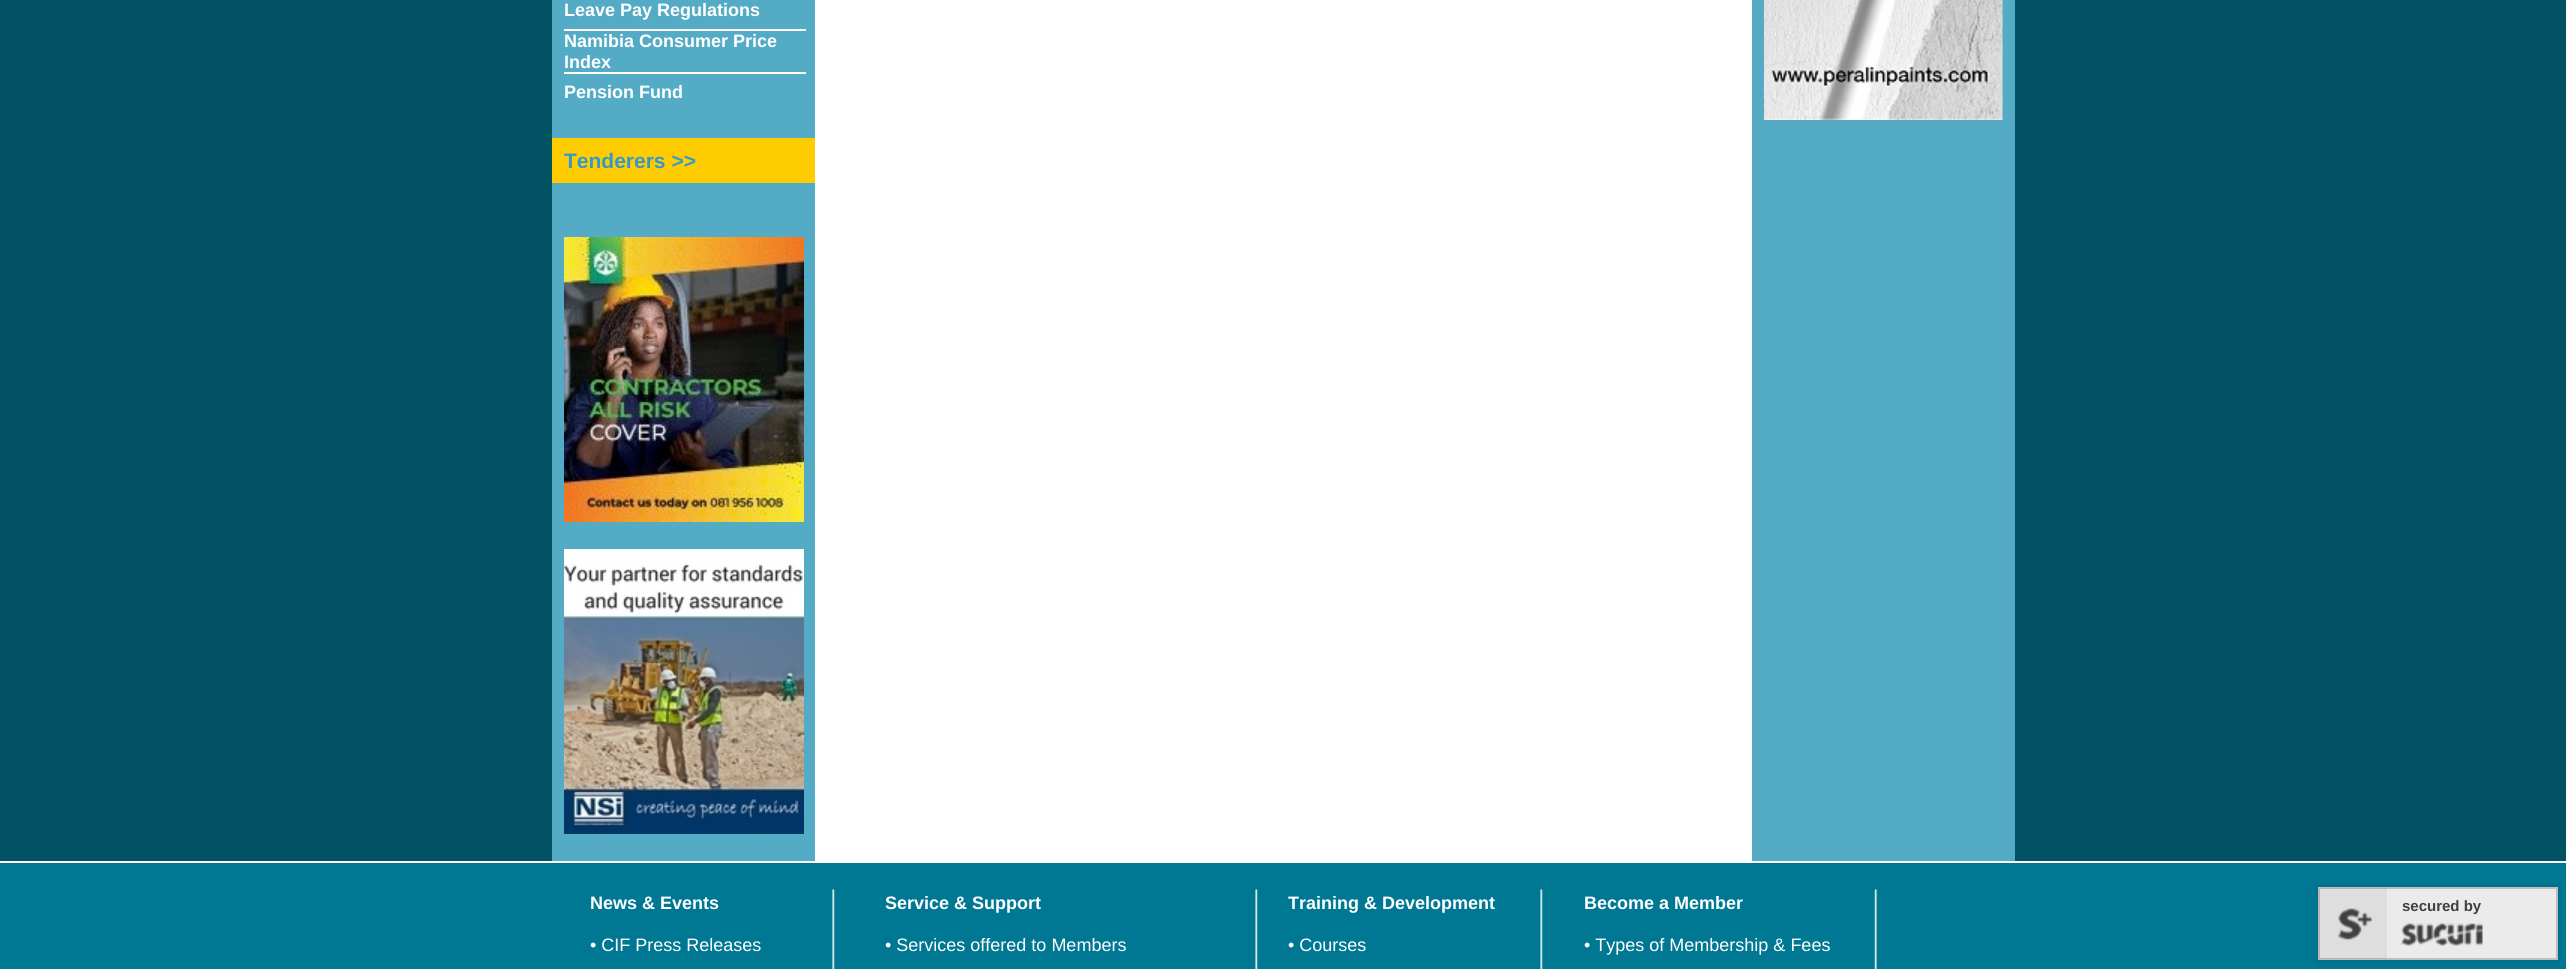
import math
import cairocffi as cairo

surface = cairo.ImageSurface(cairo.FORMAT_RGB24, 2566, 969)
ctx = cairo.Context(surface)
options = cairo.FontOptions()
options.set_hint_metrics(cairo.HINT_METRICS_OFF)
options.set_hint_style(cairo.HINT_STYLE_NONE)
ctx.set_font_options(options)
ctx.set_miter_limit(4)


def rgb(r, g, b):
    ctx.set_source_rgb(r / 255, g / 255, b / 255)


def face(family, size, italic, bold):
    ctx.select_font_face(family, cairo.FONT_SLANT_ITALIC if italic else cairo.FONT_SLANT_NORMAL, cairo.FONT_WEIGHT_BOLD if bold else cairo.FONT_WEIGHT_NORMAL)
    ctx.set_font_size(size)


def label(x, y, s):
    ctx.move_to(x, y)
    ctx.show_text(s)


def rect(x, y, w, h):
    ctx.rectangle(x, y, w, h)
    ctx.fill()


def rrect(x, y, w, h, r):
    ctx.new_sub_path()
    for i, (u, v) in enumerate([(x + w - r, y + h - r), (x + r, y + h - r), (x + r, y + r), (x + w - r, y + r)]):
        ctx.arc(u, v, r, i * math.pi / 2, (i + 1) * math.pi / 2)
    ctx.close_path()


def soft_shadow(x, y, w, h, r, blur, alpha):
    ctx.push_group_with_content(cairo.CONTENT_ALPHA)
    ctx.set_operator(cairo.OPERATOR_SOURCE)
    for i in range(15, -16, -2):
        e = blur * i / 6
        if min(w, h) + 2 * e > 0:
            ctx.set_source_rgba(0, 0, 0, alpha * math.erfc((i - 1) / 8.5) / 2)
            rrect(x - e, y - e, w + 2 * e, h + 2 * e, max(0, min(r + e + blur * .6, min(w, h) / 2 + e)))
            ctx.fill()
    ctx.mask(ctx.pop_group())


def image(path, x, y, w, h):
    ctx.save()
    ctx.set_source_surface(cairo.ImageSurface.create_from_png(path), x, y)
    ctx.rectangle(x, y, w, h)
    ctx.fill()
    ctx.restore()


rgb(255, 255, 255)
ctx.paint()
rgb(0, 81, 98)
rect(0, 0, 2566, 861)
rgb(84, 171, 198)
rect(552, 0, 263, 861)
face('Liberation Sans', 18, 0, 1)
rgb(255, 255, 255)
label(564, 16, 'Leave Pay Regulations')
rect(564, 29, 242, 2)
label(564, 47, 'Namibia Consumer Price')
label(564, 68, 'Index')
rect(564, 72, 242, 2)
label(564, 98, 'Pension Fund')
rgb(255, 204, 0)
rect(552, 138, 263, 45)
face('Liberation Sans', 21, 0, 1)
rgb(51, 153, 204)
label(564, 168, 'Tenderers >>')
image('image0.png', 564, 237, 240, 285)
image('image1.png', 564, 549, 240, 285)
rgb(255, 255, 255)
rect(815, 0, 937, 861)
rgb(84, 171, 198)
rect(1752, 0, 263, 861)
image('image2.png', 1764, 0, 239, 120)
rgb(0, 120, 147)
rect(0, 863, 2566, 106)
face('Liberation Sans', 18, 0, 1)
rgb(255, 255, 255)
label(590, 909, 'News & Events')
face('Liberation Sans', 18, 0, 0)
label(590, 951, '• CIF Press Releases')
image('image3.png', 832, 889, 4, 80)
face('Liberation Sans', 18, 0, 1)
label(885, 909, 'Service & Support')
face('Liberation Sans', 18, 0, 0)
label(885, 951, '• Services offered to Members')
image('image4.png', 1255, 889, 4, 80)
face('Liberation Sans', 18, 0, 1)
label(1288, 909, 'Training & Development')
face('Liberation Sans', 18, 0, 0)
label(1288, 951, '• Courses')
image('image4.png', 1540, 889, 4, 80)
face('Liberation Sans', 18, 0, 1)
label(1584, 909, 'Become a Member')
face('Liberation Sans', 18, 0, 0)
label(1584, 951, '• Types of Membership & Fees')
image('image5.png', 1874, 889, 4, 80)
rgb(0, 0, 0)
soft_shadow(2318, 887, 240, 73, 0, 4.5, 0.14)
rgb(235, 235, 235)
ctx.rectangle(2319, 888, 238, 71)
ctx.fill_preserve()
rgb(190, 190, 190)
ctx.stroke()
ctx.set_source_rgba(0.251, 0.251, 0.251, 0.08)
rect(2319, 888, 68, 71)
image('image6.png', 2338, 908, 34, 32)
face('Liberation Sans', 15, 0, 1)
rgb(63, 63, 63)
label(2402, 911, 'secured by')
image('image7.png', 2401, 923, 82, 23)
surface.write_to_png('render.png')
